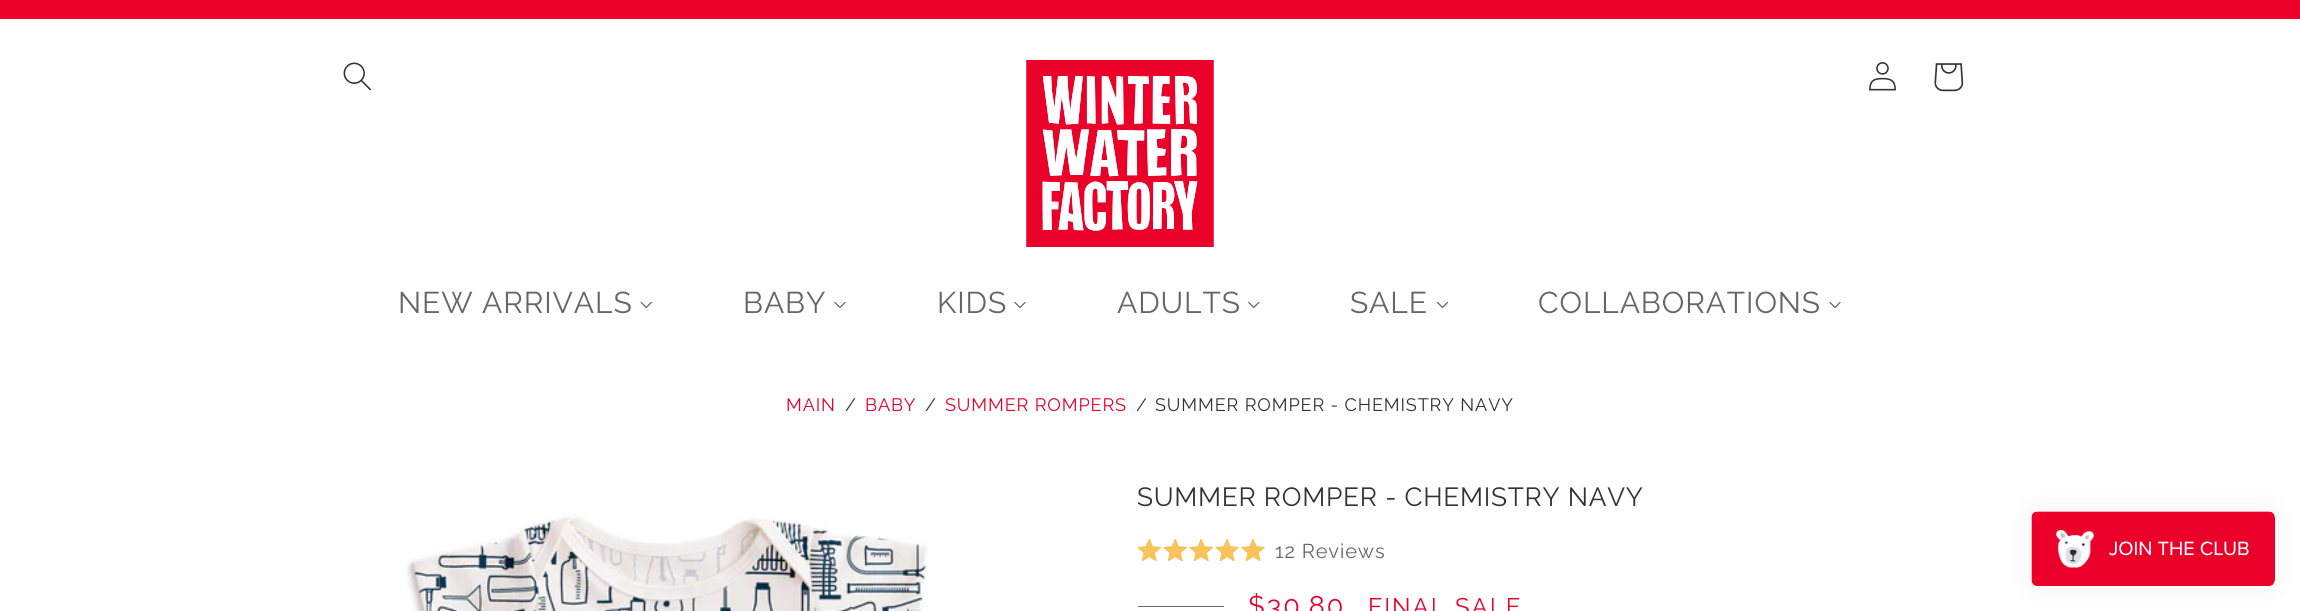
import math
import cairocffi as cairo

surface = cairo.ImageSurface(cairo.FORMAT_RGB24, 2300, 611)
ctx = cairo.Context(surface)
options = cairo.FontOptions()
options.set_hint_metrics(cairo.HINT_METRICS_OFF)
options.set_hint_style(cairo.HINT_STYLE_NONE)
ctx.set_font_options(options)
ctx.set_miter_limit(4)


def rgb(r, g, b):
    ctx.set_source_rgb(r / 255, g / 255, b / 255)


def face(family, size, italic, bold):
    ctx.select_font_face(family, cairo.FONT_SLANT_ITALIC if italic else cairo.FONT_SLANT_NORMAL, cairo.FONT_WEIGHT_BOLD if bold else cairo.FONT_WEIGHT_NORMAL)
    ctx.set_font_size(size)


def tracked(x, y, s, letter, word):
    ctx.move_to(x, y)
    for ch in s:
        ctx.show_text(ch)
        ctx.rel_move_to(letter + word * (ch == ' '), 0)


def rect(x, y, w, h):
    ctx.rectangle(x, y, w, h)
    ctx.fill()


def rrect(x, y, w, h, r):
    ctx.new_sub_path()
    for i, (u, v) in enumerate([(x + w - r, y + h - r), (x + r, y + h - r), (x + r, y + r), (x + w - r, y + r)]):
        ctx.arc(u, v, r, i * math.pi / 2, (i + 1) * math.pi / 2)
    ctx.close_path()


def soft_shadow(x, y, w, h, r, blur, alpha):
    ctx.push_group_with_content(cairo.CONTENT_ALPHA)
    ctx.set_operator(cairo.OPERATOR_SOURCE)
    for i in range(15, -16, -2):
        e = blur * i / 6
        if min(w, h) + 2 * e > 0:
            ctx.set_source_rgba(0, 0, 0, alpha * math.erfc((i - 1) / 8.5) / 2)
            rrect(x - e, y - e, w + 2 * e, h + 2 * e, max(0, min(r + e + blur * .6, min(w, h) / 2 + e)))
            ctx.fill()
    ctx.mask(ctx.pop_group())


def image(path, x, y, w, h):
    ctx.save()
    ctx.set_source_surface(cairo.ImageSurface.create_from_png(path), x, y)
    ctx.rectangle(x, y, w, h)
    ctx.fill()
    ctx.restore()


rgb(255, 255, 255)
ctx.paint()
rgb(234, 0, 41)
rect(0, 0, 2300, 19)
image('image0.png', 343, 62, 28, 29)
image('image1.png', 1869, 62, 27, 29)
image('image2.png', 1934, 63, 30, 29)
image('image3.png', 1026, 60, 188, 187)
face('Raleway Thin', 30, 0, 0)
rgb(102, 102, 102)
tracked(398, 313, 'NEW ARRIVALS', 0.9, 0)
image('image4.png', 640, 301, 12, 8)
tracked(743, 313, 'BABY', 0.9, 0)
image('image5.png', 834, 302, 12, 6)
tracked(937, 313, 'KIDS', 0.9, 0)
image('image5.png', 1014, 302, 12, 6)
tracked(1117, 313, 'ADULTS', 0.9, 0)
image('image6.png', 1248, 301, 12, 8)
tracked(1350, 313, 'SALE', 0.9, 0)
image('image7.png', 1436, 301, 13, 8)
tracked(1538, 313, 'COLLABORATIONS', 0.9, 0)
image('image5.png', 1829, 302, 12, 6)
face('Raleway Thin', 18, 0, 0)
rgb(234, 0, 41)
tracked(786, 411, 'MAIN', 0.9, 0)
rgb(51, 51, 51)
tracked(845, 411, '/', 0.9, 0)
rgb(234, 0, 41)
tracked(865, 411, 'BABY', 0.9, 0)
rgb(51, 51, 51)
tracked(925, 411, '/', 0.9, 0)
rgb(234, 0, 41)
tracked(945, 411, 'SUMMER ROMPERS', 0.9, 0)
rgb(51, 51, 51)
tracked(1136, 411, '/', 0.9, 0)
tracked(1155, 411, 'SUMMER ROMPER - CHEMISTRY NAVY', 0.9, 0)
image('image8.png', 406, 513, 522, 98)
face('Raleway Thin', 26.25, 0, 0)
tracked(1137, 506, 'SUMMER ROMPER - CHEMISTRY NAVY', 0.75, 0)
image('image9.png', 1137, 539, 128, 22)
image('image10.png', 1138, 539, 127, 22)
face('Raleway Thin', 20, 0, 0)
rgb(102, 102, 102)
tracked(1275, 558, '12 Reviews', 0.9, 0)
ctx.set_source_rgba(0.2, 0.2, 0.2, 0.75)
rect(1138, 606, 86, 1)
face('Raleway Thin', 27, 0, 0)
rgb(234, 0, 41)
tracked(1248, 615, '$30.80', 2, 0)
face('Raleway Thin', 24, 0, 0)
tracked(1368, 615, 'FINAL SALE', 2, 0)
rgb(0, 0, 0)
soft_shadow(2031, 511, 244, 75, 6, 15.5, 0.05)
image('image11.png', 2031, 511, 244, 75)
surface.write_to_png('render.png')
